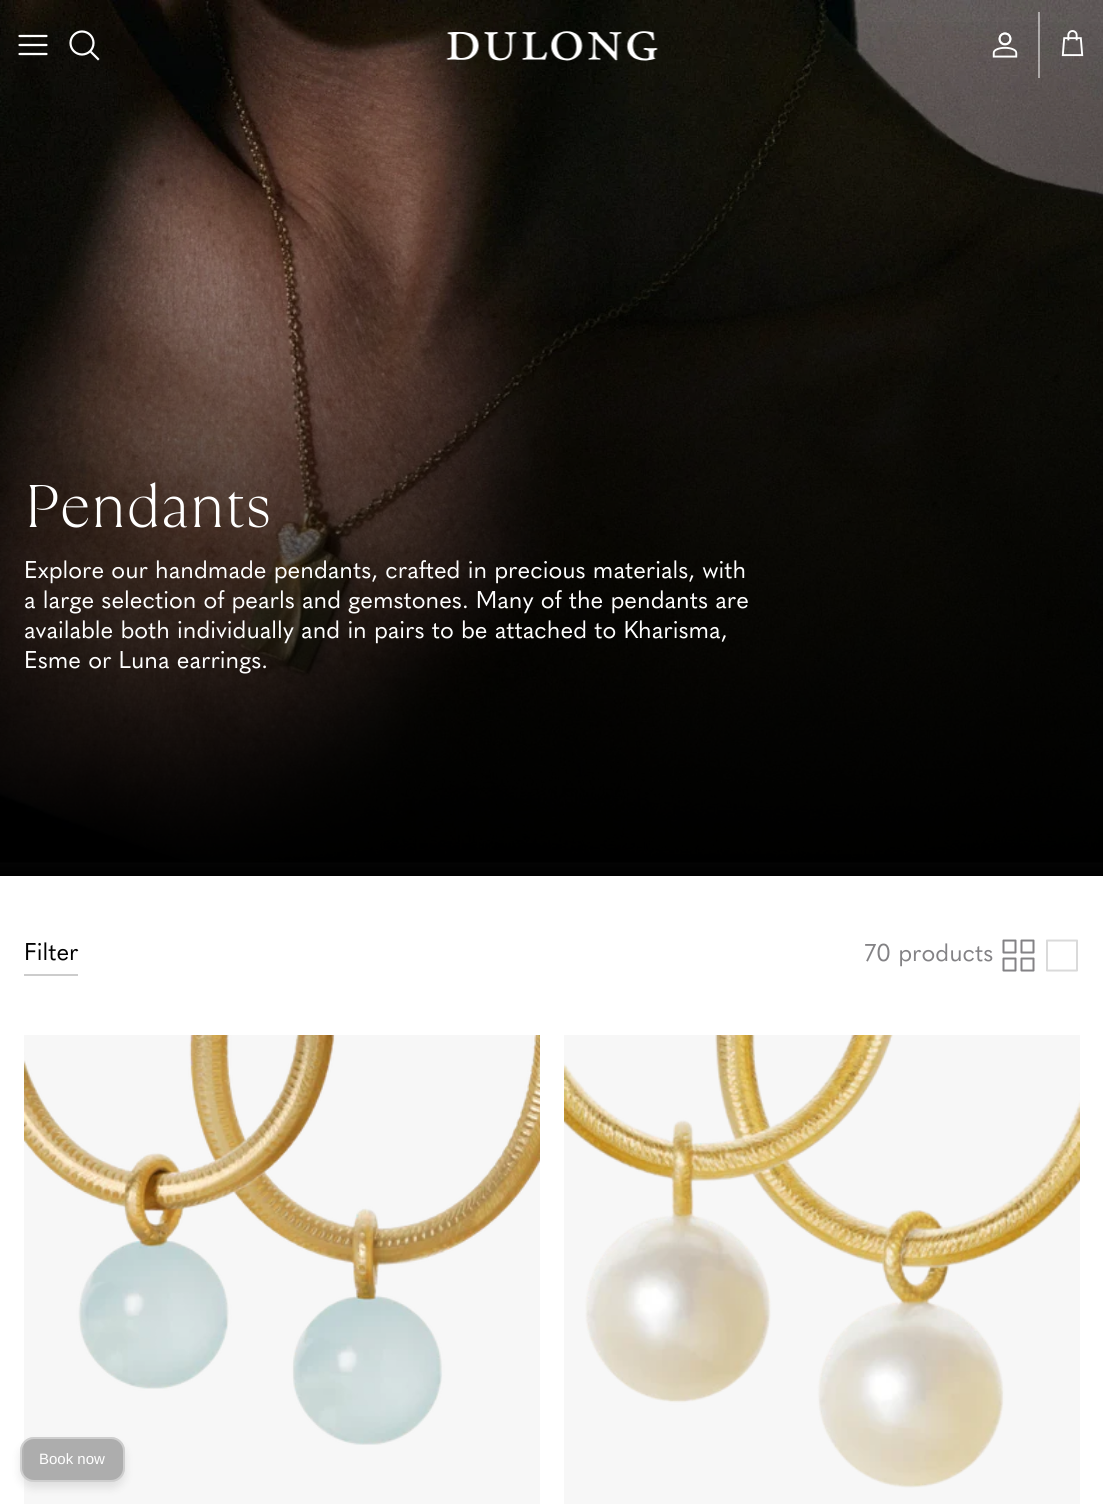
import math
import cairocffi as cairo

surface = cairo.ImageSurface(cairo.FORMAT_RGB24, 1103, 1504)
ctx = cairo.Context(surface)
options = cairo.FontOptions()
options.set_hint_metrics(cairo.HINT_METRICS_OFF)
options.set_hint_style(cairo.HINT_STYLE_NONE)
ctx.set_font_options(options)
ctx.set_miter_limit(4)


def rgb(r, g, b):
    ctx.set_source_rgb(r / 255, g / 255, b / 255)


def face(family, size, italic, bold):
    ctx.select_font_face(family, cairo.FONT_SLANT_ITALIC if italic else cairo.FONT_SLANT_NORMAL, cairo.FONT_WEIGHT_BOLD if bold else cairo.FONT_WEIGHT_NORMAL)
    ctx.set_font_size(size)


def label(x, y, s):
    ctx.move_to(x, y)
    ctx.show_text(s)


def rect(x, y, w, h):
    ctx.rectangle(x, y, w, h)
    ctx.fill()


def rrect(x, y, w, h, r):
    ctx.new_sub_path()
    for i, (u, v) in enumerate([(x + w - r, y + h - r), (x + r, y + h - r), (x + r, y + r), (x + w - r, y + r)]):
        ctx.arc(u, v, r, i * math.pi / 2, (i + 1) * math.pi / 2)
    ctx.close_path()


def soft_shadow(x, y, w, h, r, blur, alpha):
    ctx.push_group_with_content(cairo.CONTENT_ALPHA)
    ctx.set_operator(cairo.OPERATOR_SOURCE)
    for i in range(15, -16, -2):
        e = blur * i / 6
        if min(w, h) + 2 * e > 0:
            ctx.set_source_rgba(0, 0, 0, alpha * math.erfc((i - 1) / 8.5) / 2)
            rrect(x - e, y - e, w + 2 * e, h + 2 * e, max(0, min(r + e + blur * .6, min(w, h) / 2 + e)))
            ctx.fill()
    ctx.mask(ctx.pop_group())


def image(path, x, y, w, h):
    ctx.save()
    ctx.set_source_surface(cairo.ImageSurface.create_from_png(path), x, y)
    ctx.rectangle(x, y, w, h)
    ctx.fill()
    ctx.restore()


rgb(255, 255, 255)
ctx.paint()
image('image3.png', 0, 0, 1103, 863)
gradient = cairo.LinearGradient(552, 876, 552, 0)
gradient.add_color_stop_rgba(0, 0, 0, 0, 1)
gradient.add_color_stop_rgba(1, 0, 0, 0, 0)
ctx.set_source(gradient)
rect(0, 22, 1103, 854)
ctx.new_path()
ctx.move_to(19.5, 45)
ctx.line_to(46.5, 45)
ctx.move_to(19.5, 36)
ctx.line_to(46.5, 36)
ctx.move_to(19.5, 54)
ctx.line_to(46.5, 54)
rgb(255, 255, 255)
ctx.set_line_width(2.2)
ctx.set_line_cap(cairo.LINE_CAP_ROUND)
ctx.set_line_join(cairo.LINE_JOIN_ROUND)
ctx.stroke()
ctx.arc(82, 43, 11.5, 0, 2 * math.pi)
ctx.set_line_cap(cairo.LINE_CAP_BUTT)
ctx.set_line_join(cairo.LINE_JOIN_MITER)
ctx.stroke()
ctx.new_path()
ctx.move_to(91.5, 52.5)
ctx.line_to(98, 59)
ctx.set_line_cap(cairo.LINE_CAP_SQUARE)
ctx.stroke()
image('image0.png', 446, 31, 212, 30)
image('image1.png', 992, 32, 26, 26)
ctx.set_source_rgba(1, 1, 1, 0.5)
rect(1038, 12, 2, 66)
image('image2.png', 1061, 30, 23, 27)
face('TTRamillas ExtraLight', 60, 0, 0)
rgb(255, 255, 255)
label(24, 527, 'Pendants')
face('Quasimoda', 24, 0, 0)
label(24, 578, 'Explore our handmade pendants, crafted in precious materials, with')
label(24, 608, 'a large selection of pearls and gemstones. Many of the pendants are')
label(24, 638, 'available both individually and in pairs to be attached to Kharisma,')
label(24, 668, 'Esme or Luna earrings.')
rgb(204, 204, 204)
rect(24, 974, 54, 2)
rgb(0, 0, 0)
label(24, 960, 'Filter')
rgb(131, 130, 133)
label(865, 961, '70 products')
image('image4.png', 1002, 939, 33, 33)
ctx.new_path()
ctx.move_to(1047, 940.5)
ctx.line_to(1077, 940.5)
ctx.line_to(1077, 970.5)
ctx.line_to(1047, 970.5)
ctx.line_to(1047, 940.5)
rgb(218, 218, 218)
ctx.set_line_width(2)
ctx.set_line_cap(cairo.LINE_CAP_ROUND)
ctx.set_line_join(cairo.LINE_JOIN_ROUND)
ctx.stroke()
rgb(247, 247, 247)
rect(24, 1035, 516, 469)
image('image5.png', 24, 1035, 516, 410)
rect(564, 1035, 516, 469)
image('image6.png', 564, 1035, 516, 453)
ctx.save()
ctx.set_fill_rule(cairo.FILL_RULE_EVEN_ODD)
ctx.new_path()
ctx.move_to(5, 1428)
ctx.line_to(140, 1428)
ctx.line_to(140, 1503)
ctx.line_to(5, 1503)
ctx.close_path()
ctx.move_to(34, 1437)
ctx.line_to(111, 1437)
ctx.curve_to(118.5, 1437, 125, 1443.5, 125, 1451)
ctx.line_to(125, 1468)
ctx.curve_to(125, 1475.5, 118.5, 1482, 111, 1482)
ctx.line_to(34, 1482)
ctx.curve_to(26.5, 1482, 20, 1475.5, 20, 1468)
ctx.line_to(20, 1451)
ctx.curve_to(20, 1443.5, 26.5, 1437, 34, 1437)
ctx.close_path()
ctx.clip()
rgb(0, 0, 0)
soft_shadow(20, 1443, 105, 45, 14, 4.5, 0.1)
ctx.restore()
ctx.set_source_rgba(0, 0, 0, 0.3)
rrect(20, 1437, 105, 45, 14)
ctx.fill()
rrect(21, 1438, 103, 43, 13)
ctx.set_source_rgba(1, 1, 1, 0.4)
ctx.set_line_cap(cairo.LINE_CAP_BUTT)
ctx.set_line_join(cairo.LINE_JOIN_MITER)
ctx.stroke()
face('Liberation Sans', 15, 0, 0)
rgb(255, 255, 255)
label(39, 1464, 'Book now')
surface.write_to_png('render.png')
